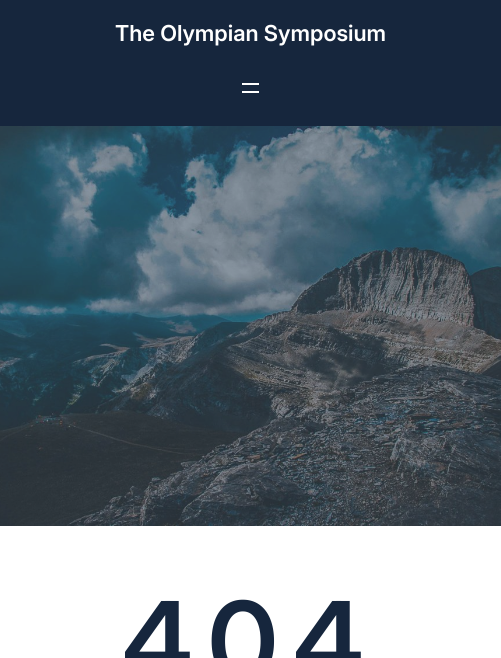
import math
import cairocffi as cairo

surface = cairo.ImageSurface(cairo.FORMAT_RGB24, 501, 658)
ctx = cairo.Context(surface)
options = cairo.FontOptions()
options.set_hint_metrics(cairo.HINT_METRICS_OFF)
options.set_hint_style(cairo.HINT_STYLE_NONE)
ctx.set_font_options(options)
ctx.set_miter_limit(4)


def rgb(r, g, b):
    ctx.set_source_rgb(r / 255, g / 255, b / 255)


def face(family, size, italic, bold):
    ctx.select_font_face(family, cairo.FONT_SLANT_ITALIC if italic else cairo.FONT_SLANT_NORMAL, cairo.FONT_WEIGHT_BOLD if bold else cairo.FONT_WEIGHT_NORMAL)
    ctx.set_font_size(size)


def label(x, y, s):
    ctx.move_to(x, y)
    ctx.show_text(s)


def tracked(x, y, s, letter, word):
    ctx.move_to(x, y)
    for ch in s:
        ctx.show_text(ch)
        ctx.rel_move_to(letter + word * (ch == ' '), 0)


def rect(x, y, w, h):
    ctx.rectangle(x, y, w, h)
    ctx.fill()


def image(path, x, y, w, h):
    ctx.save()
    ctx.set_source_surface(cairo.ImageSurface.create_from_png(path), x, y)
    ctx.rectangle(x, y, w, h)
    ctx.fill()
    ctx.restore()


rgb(255, 255, 255)
ctx.paint()
rgb(22, 38, 61)
rect(0, 0, 501, 126)
face('Inter SemiBold', 22, 0, 0)
rgb(255, 255, 255)
label(115, 41, 'The Olympian Symposium')
rect(242, 83, 17, 2)
rect(242, 91, 17, 2)
image('image0.png', 0, 126, 501, 400)
face('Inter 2 SemiBold', 110, 0, 0)
rgb(22, 38, 61)
tracked(122, 681, '404', 15, 0)
surface.write_to_png('render.png')
